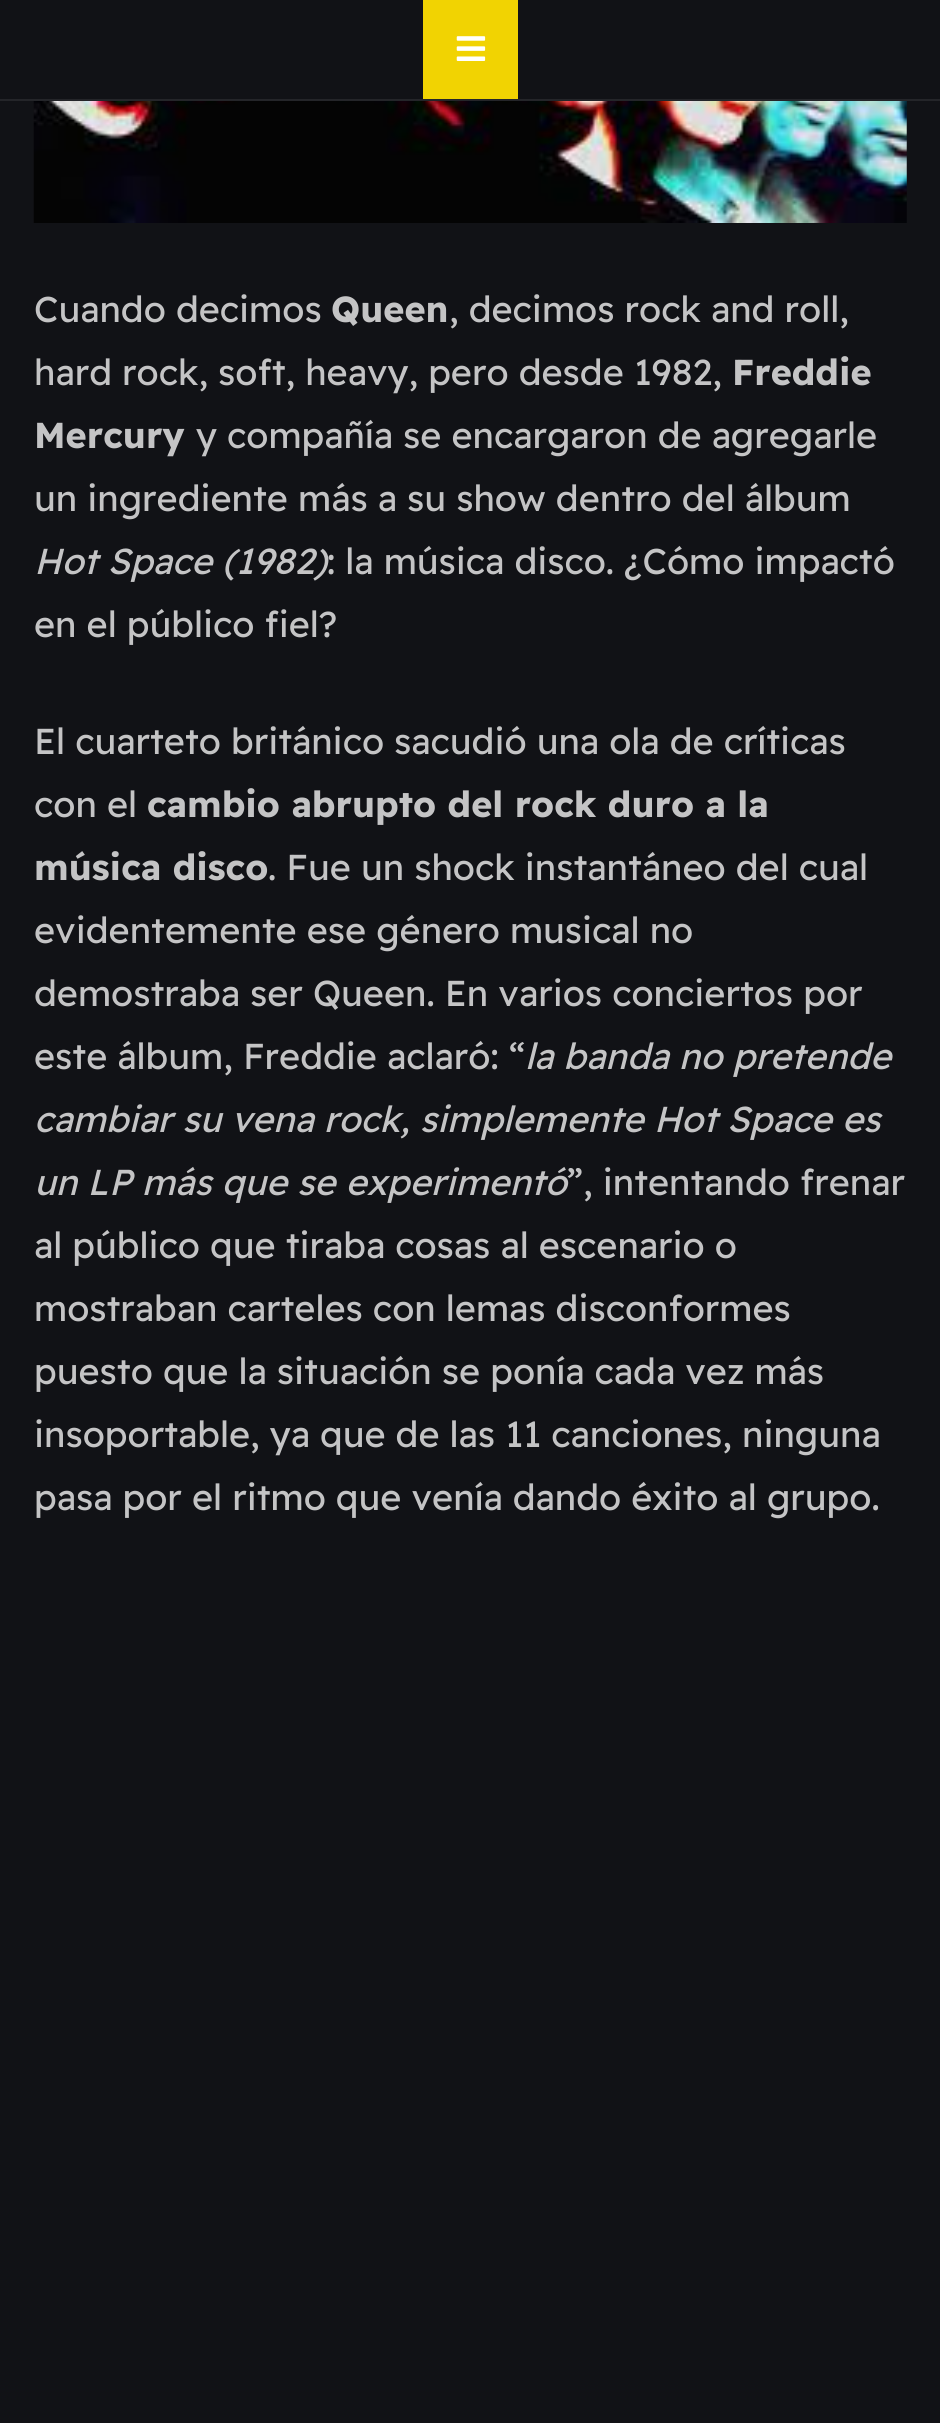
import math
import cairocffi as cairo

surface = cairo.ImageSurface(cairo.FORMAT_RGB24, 940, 2423)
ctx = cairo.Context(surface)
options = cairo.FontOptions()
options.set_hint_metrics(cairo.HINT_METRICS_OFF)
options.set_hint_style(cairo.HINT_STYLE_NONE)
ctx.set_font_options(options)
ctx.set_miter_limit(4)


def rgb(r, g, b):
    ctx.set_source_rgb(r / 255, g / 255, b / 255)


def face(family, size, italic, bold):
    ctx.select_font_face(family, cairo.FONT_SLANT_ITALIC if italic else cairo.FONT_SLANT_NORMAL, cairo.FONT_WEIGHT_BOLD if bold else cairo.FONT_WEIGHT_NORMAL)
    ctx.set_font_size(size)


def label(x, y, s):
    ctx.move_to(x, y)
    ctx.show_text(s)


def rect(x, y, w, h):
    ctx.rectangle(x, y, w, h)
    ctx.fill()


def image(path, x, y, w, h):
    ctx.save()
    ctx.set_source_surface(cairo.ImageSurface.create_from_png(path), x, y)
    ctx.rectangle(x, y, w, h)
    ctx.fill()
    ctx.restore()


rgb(17, 18, 22)
ctx.paint()
rgb(36, 37, 41)
rect(0, 99, 940, 2)
rgb(241, 211, 2)
rect(423, 0, 95, 99)
image('image0.png', 456, 36, 30, 25)
image('image1.png', 33, 101, 874, 122)
face('Readex Pro', 36, 0, 0)
rgb(196, 196, 197)
label(34, 322, 'Cuando decimos')
face('Readex Pro', 36, 0, 1)
label(331, 322, 'Queen')
face('Readex Pro', 36, 0, 0)
label(449, 322, ', decimos rock and roll,')
label(34, 385, 'hard rock, soft, heavy, pero desde 1982,')
face('Readex Pro', 36, 0, 1)
label(732, 385, 'Freddie')
label(34, 448, 'Mercury')
face('Readex Pro', 36, 0, 0)
label(196, 448, 'y compañía se encargaron de agregarle')
label(34, 511, 'un ingrediente más a su show dentro del álbum')
face('Readex Pro', 36, 1, 0)
label(34, 574, 'Hot Space (1982)')
face('Readex Pro', 36, 0, 0)
label(327, 574, ': la música disco. ¿Cómo impactó')
label(34, 637, 'en el público fiel?')
label(34, 754, 'El cuarteto británico sacudió una ola de críticas')
label(34, 817, 'con el')
face('Readex Pro', 36, 0, 1)
label(147, 817, 'cambio abrupto del rock duro a la')
label(34, 880, 'música disco')
face('Readex Pro', 36, 0, 0)
label(268, 880, '. Fue un shock instantáneo del cual')
label(34, 943, 'evidentemente ese género musical no')
label(34, 1006, 'demostraba ser Queen. En varios conciertos por')
label(34, 1069, 'este álbum, Freddie aclaró: “')
face('Readex Pro', 36, 1, 0)
label(525, 1069, 'la banda no pretende')
label(34, 1132, 'cambiar su vena rock, simplemente Hot Space es')
label(34, 1195, 'un LP más que se experimentó')
face('Readex Pro', 36, 0, 0)
label(567, 1195, '”, intentando frenar')
label(34, 1258, 'al público que tiraba cosas al escenario o')
label(34, 1321, 'mostraban carteles con lemas disconformes')
label(34, 1384, 'puesto que la situación se ponía cada vez más')
label(34, 1447, 'insoportable, ya que de las 11 canciones, ninguna')
label(34, 1510, 'pasa por el ritmo que venía dando éxito al grupo.')
surface.write_to_png('render.png')
